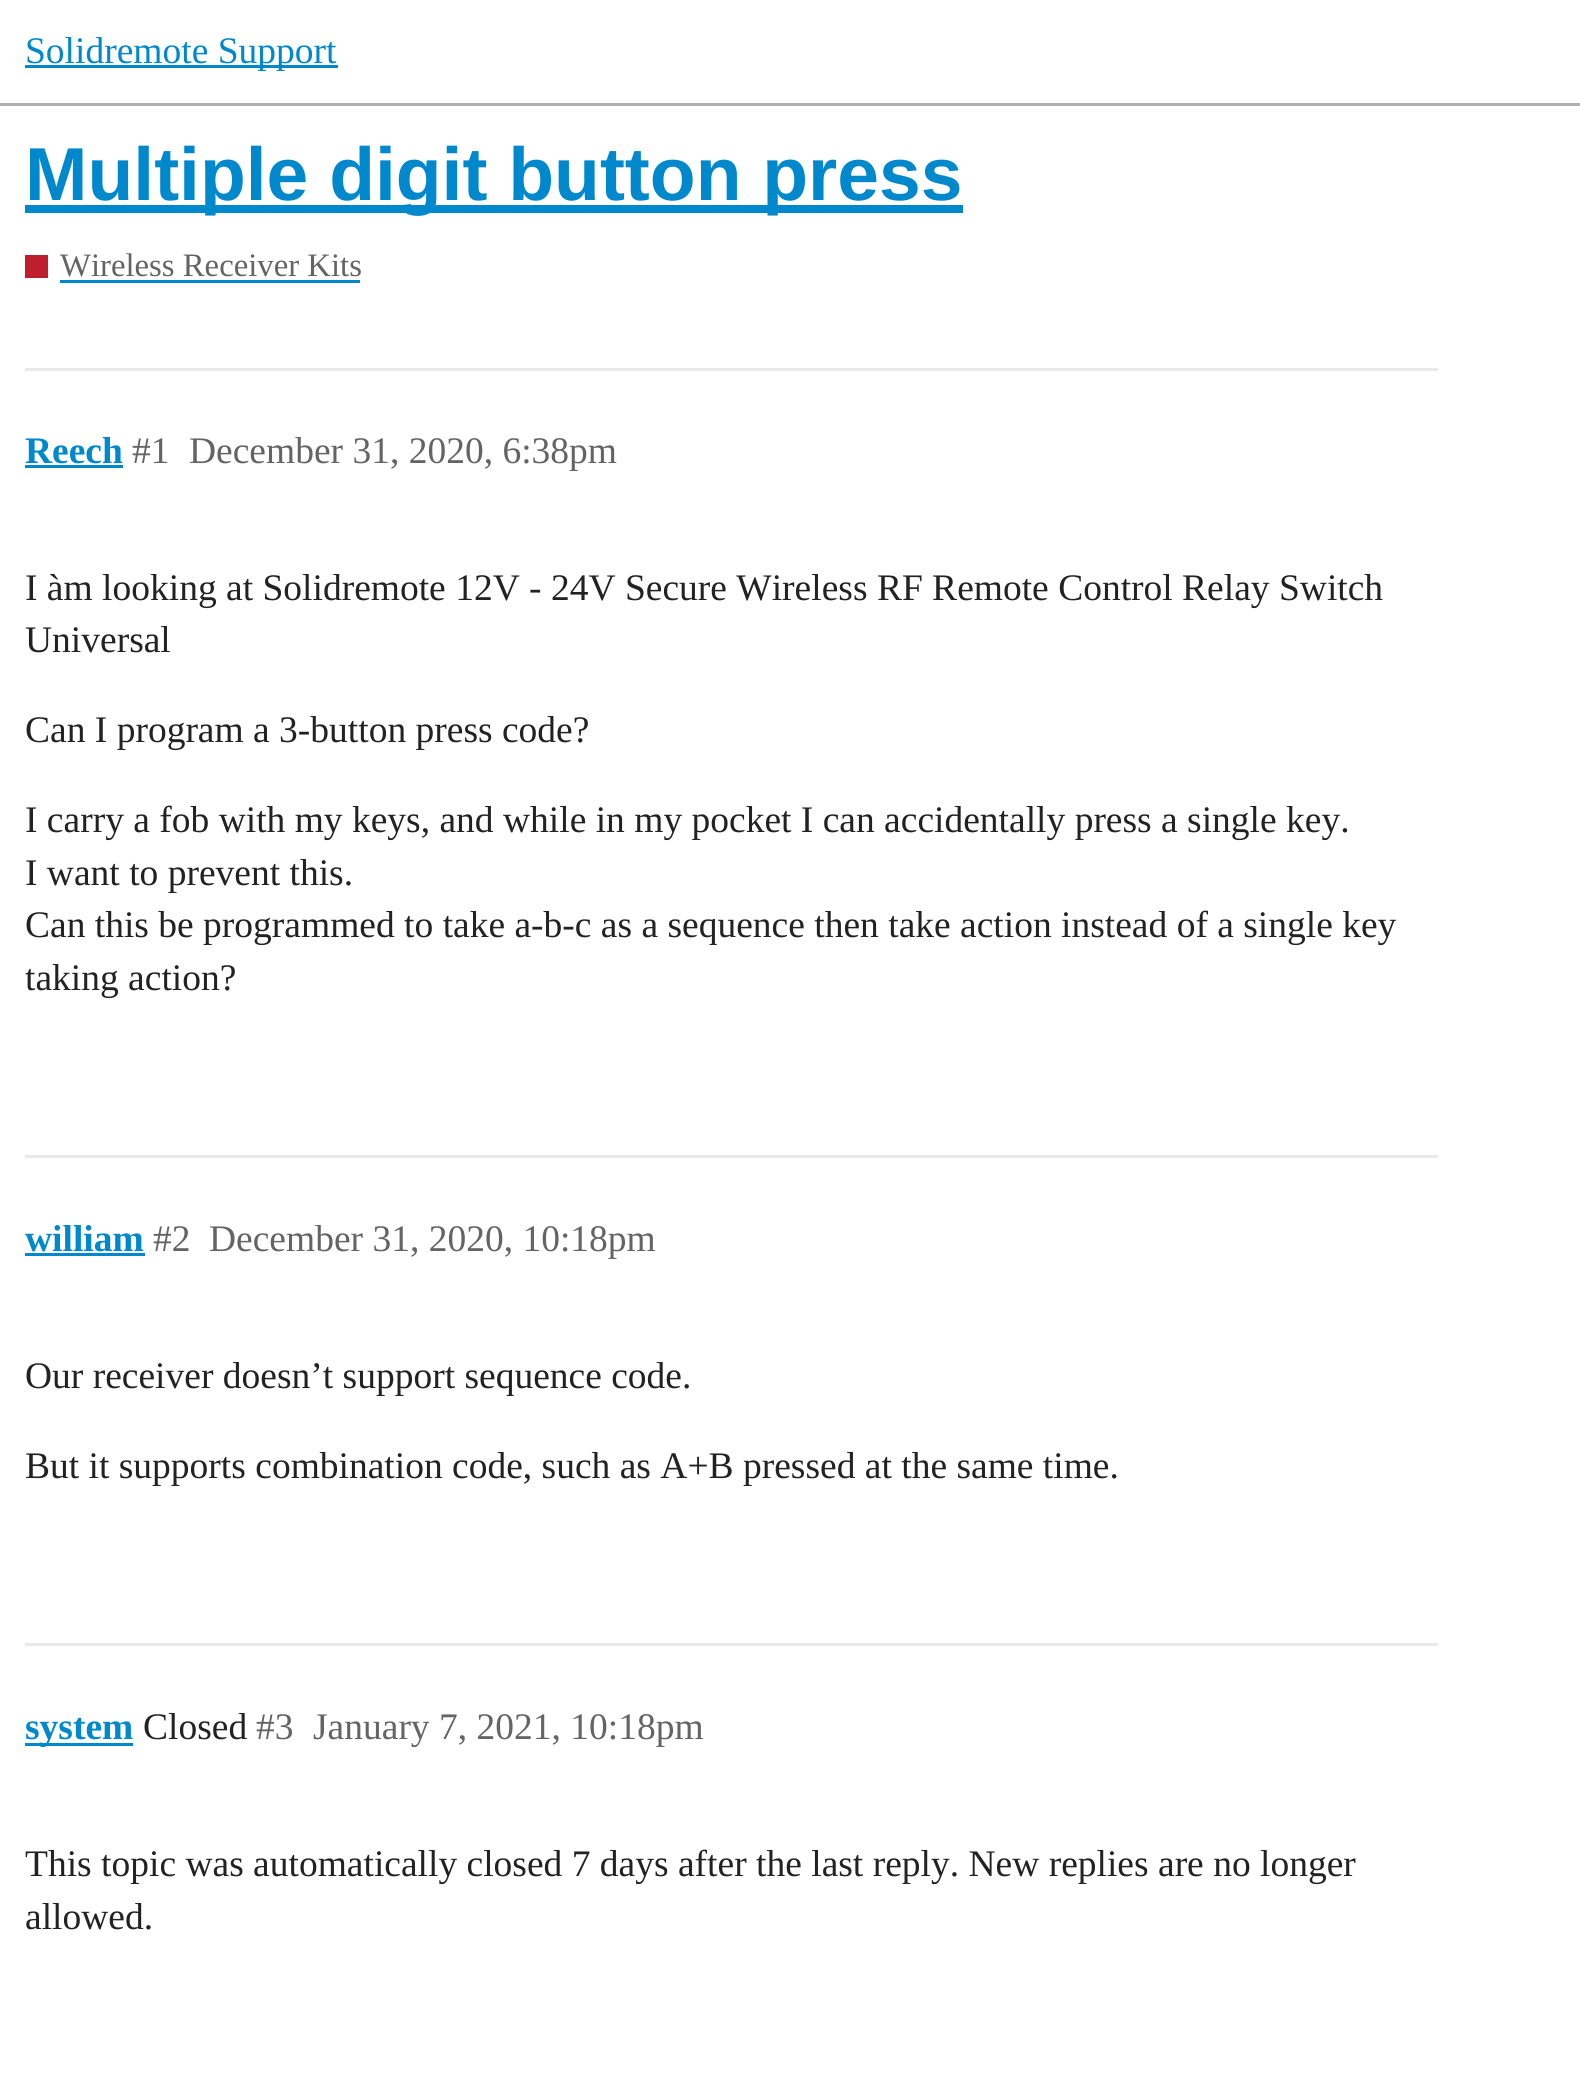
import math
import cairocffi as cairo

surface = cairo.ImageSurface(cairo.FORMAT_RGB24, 1580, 2079)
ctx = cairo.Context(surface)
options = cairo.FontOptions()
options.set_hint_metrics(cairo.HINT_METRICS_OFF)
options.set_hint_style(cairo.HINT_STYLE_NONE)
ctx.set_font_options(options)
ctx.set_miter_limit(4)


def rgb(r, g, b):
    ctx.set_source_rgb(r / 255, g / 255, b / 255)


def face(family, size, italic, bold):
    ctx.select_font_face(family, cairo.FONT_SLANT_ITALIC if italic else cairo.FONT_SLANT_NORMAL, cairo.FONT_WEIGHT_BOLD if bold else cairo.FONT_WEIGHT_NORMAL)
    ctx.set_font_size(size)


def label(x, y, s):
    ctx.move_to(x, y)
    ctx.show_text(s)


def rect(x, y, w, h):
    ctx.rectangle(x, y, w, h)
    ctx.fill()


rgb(255, 255, 255)
ctx.paint()
rgb(175, 175, 175)
rect(0, 103, 1580, 3)
rgb(0, 136, 204)
rect(25, 65, 313, 3)
face('Liberation Serif', 37.5, 0, 0)
label(25, 63, 'Solidremote Support')
rect(25, 205, 938, 8)
face('Liberation Sans', 75, 0, 1)
label(25, 200, 'Multiple digit button press')
rgb(191, 30, 46)
rect(25, 255, 23, 23)
face('Liberation Serif', 32.75, 0, 0)
rgb(100, 100, 100)
label(60, 276, 'Wireless Receiver Kits')
rgb(0, 136, 204)
rect(60, 280, 300, 3)
rgb(233, 233, 233)
rect(25, 368, 1413, 3)
face('Liberation Serif', 37.5, 0, 1)
rgb(0, 136, 204)
label(25, 463, 'Reech')
rect(25, 465, 98, 3)
face('Liberation Serif', 37.5, 0, 0)
rgb(100, 100, 100)
label(132, 463, '#1')
label(189, 463, 'December 31, 2020, 6:38pm')
rgb(34, 34, 34)
label(25, 600, 'I àm looking at Solidremote 12V - 24V Secure Wireless RF Remote Control Relay Switch')
label(25, 652, 'Universal')
label(25, 742, 'Can I program a 3-button press code?')
label(25, 832, 'I carry a fob with my keys, and while in my pocket I can accidentally press a single key.')
label(25, 885, 'I want to prevent this.')
label(25, 937, 'Can this be programmed to take a-b-c as a sequence then take action instead of a single key')
label(25, 990, 'taking action?')
rgb(233, 233, 233)
rect(25, 1155, 1413, 3)
face('Liberation Serif', 37.5, 0, 1)
rgb(0, 136, 204)
label(25, 1251, 'william')
rect(25, 1253, 120, 3)
face('Liberation Serif', 37.5, 0, 0)
rgb(100, 100, 100)
label(153, 1251, '#2')
label(209, 1251, 'December 31, 2020, 10:18pm')
rgb(34, 34, 34)
label(25, 1388, 'Our receiver doesn’t support sequence code.')
label(25, 1478, 'But it supports combination code, such as A+B pressed at the same time.')
rgb(233, 233, 233)
rect(25, 1643, 1413, 3)
rgb(0, 136, 204)
rect(25, 1743, 108, 3)
face('Liberation Serif', 37.5, 0, 1)
label(25, 1739, 'system')
face('Liberation Serif', 37.5, 0, 0)
rgb(34, 34, 34)
label(143, 1739, 'Closed')
rgb(100, 100, 100)
label(256, 1739, '#3')
label(313, 1739, 'January 7, 2021, 10:18pm')
rgb(34, 34, 34)
label(25, 1876, 'This topic was automatically closed 7 days after the last reply. New replies are no longer')
label(25, 1929, 'allowed.')
surface.write_to_png('render.png')
